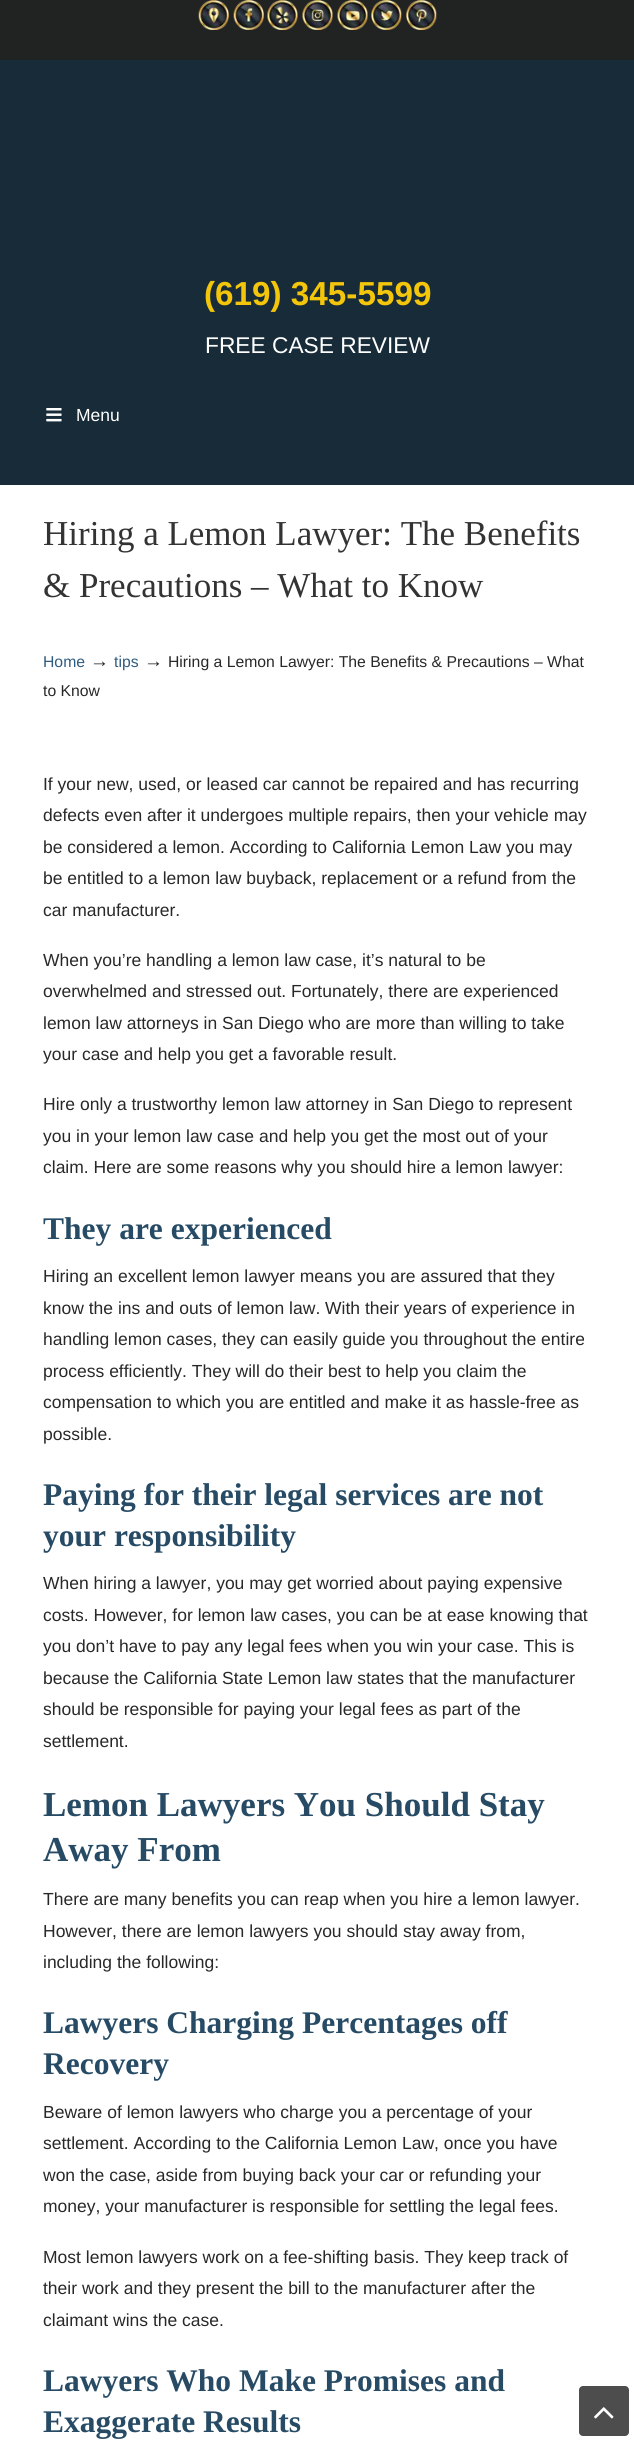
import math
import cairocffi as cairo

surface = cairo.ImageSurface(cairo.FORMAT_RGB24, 634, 2442)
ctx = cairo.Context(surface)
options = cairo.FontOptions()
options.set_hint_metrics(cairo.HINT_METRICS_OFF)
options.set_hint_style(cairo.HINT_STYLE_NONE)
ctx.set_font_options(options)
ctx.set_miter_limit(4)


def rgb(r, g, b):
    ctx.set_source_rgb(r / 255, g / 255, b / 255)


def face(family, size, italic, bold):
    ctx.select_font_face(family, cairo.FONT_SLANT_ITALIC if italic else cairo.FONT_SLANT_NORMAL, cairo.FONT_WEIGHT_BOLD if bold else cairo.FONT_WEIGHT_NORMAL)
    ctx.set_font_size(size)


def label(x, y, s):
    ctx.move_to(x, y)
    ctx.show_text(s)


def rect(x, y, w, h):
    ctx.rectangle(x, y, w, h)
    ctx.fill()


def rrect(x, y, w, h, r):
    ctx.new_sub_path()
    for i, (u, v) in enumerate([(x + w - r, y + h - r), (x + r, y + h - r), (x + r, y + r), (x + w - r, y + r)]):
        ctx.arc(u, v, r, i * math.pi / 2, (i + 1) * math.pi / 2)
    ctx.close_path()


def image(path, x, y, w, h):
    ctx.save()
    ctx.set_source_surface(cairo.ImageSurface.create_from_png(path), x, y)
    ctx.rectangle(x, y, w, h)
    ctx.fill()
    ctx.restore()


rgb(255, 255, 255)
ctx.paint()
rgb(23, 43, 57)
rect(0, 60, 634, 425)
rgb(33, 34, 34)
rect(0, 0, 634, 60)
image('image0.png', 198, 0, 31, 30)
image('image1.png', 233, 0, 31, 30)
image('image2.png', 267, 0, 31, 30)
image('image3.png', 302, 0, 31, 30)
image('image4.png', 337, 0, 31, 30)
image('image5.png', 371, 0, 31, 30)
image('image6.png', 406, 0, 31, 30)
face('Liberation Sans', 33.25, 0, 1)
rgb(243, 197, 11)
label(204, 305, '(619) 345-5599')
face('Liberation Sans', 22.75, 0, 0)
rgb(255, 255, 255)
label(205, 353, 'FREE CASE REVIEW')
image('image7.png', 46, 408, 16, 14)
face('Liberation Sans', 17.5, 0, 0)
label(76, 421, 'Menu')
face('Liberation Serif', 35, 0, 0)
rgb(51, 51, 51)
label(43, 545, 'Hiring a Lemon Lawyer: The Benefits')
label(43, 597, '& Precautions – What to Know')
face('Liberation Sans', 15.75, 0, 0)
rgb(47, 92, 127)
label(43, 667, 'Home')
face('Liberation Sans', 19, 0, 0)
rgb(40, 40, 40)
label(90, 667, '→')
face('Liberation Sans', 15.75, 0, 0)
rgb(47, 92, 127)
label(114, 667, 'tips')
face('Liberation Sans', 19, 0, 0)
rgb(40, 40, 40)
label(144, 667, '→')
face('Liberation Sans', 15.75, 0, 0)
label(168, 667, 'Hiring a Lemon Lawyer: The Benefits & Precautions – What')
label(43, 696, 'to Know')
face('Liberation Sans', 17.5, 0, 0)
label(43, 790, 'If your new, used, or leased car cannot be repaired and has recurring')
label(43, 821, 'defects even after it undergoes multiple repairs, then your vehicle may')
label(43, 853, 'be considered a lemon. According to California Lemon Law you may')
label(43, 884, 'be entitled to a lemon law buyback, replacement or a refund from the')
label(43, 916, 'car manufacturer.')
label(43, 966, 'When you’re handling a lemon law case, it’s natural to be')
label(43, 997, 'overwhelmed and stressed out. Fortunately, there are experienced')
label(43, 1029, 'lemon law attorneys in San Diego who are more than willing to take')
label(43, 1060, 'your case and help you get a favorable result.')
label(43, 1110, 'Hire only a trustworthy lemon law attorney in San Diego to represent')
label(43, 1142, 'you in your lemon law case and help you get the most out of your')
label(43, 1173, 'claim. Here are some reasons why you should hire a lemon lawyer:')
face('Liberation Serif', 31.5, 0, 1)
rgb(39, 75, 101)
label(43, 1239, 'They are experienced')
face('Liberation Sans', 17.5, 0, 0)
rgb(40, 40, 40)
label(43, 1282, 'Hiring an excellent lemon lawyer means you are assured that they')
label(43, 1314, 'know the ins and outs of lemon law. With their years of experience in')
label(43, 1345, 'handling lemon cases, they can easily guide you throughout the entire')
label(43, 1377, 'process efficiently. They will do their best to help you claim the')
label(43, 1408, 'compensation to which you are entitled and make it as hassle-free as')
label(43, 1440, 'possible.')
face('Liberation Serif', 31.5, 0, 1)
rgb(39, 75, 101)
label(43, 1505, 'Paying for their legal services are not')
label(43, 1546, 'your responsibility')
face('Liberation Sans', 17.5, 0, 0)
rgb(40, 40, 40)
label(43, 1589, 'When hiring a lawyer, you may get worried about paying expensive')
label(43, 1621, 'costs. However, for lemon law cases, you can be at ease knowing that')
label(43, 1652, 'you don’t have to pay any legal fees when you win your case. This is')
label(43, 1684, 'because the California State Lemon law states that the manufacturer')
label(43, 1715, 'should be responsible for paying your legal fees as part of the')
label(43, 1747, 'settlement.')
face('Liberation Serif', 35, 0, 1)
rgb(39, 75, 101)
label(43, 1816, 'Lemon Lawyers You Should Stay')
label(43, 1861, 'Away From')
face('Liberation Sans', 17.5, 0, 0)
rgb(40, 40, 40)
label(43, 1905, 'There are many benefits you can reap when you hire a lemon lawyer.')
label(43, 1937, 'However, there are lemon lawyers you should stay away from,')
label(43, 1968, 'including the following:')
face('Liberation Serif', 31.5, 0, 1)
rgb(39, 75, 101)
label(43, 2033, 'Lawyers Charging Percentages off')
label(43, 2074, 'Recovery')
face('Liberation Sans', 17.5, 0, 0)
rgb(40, 40, 40)
label(43, 2118, 'Beware of lemon lawyers who charge you a percentage of your')
label(43, 2149, 'settlement. According to the California Lemon Law, once you have')
label(43, 2181, 'won the case, aside from buying back your car or refunding your')
label(43, 2212, 'money, your manufacturer is responsible for settling the legal fees.')
label(43, 2263, 'Most lemon lawyers work on a fee-shifting basis. They keep track of')
label(43, 2294, 'their work and they present the bill to the manufacturer after the')
label(43, 2326, 'claimant wins the case.')
face('Liberation Serif', 31.5, 0, 1)
rgb(39, 75, 101)
label(43, 2391, 'Lawyers Who Make Promises and')
label(43, 2432, 'Exaggerate Results')
rgb(77, 77, 77)
rrect(579, 2386, 50, 50, 4)
ctx.fill()
image('image8.png', 594, 2407, 20, 12)
surface.write_to_png('render.png')
